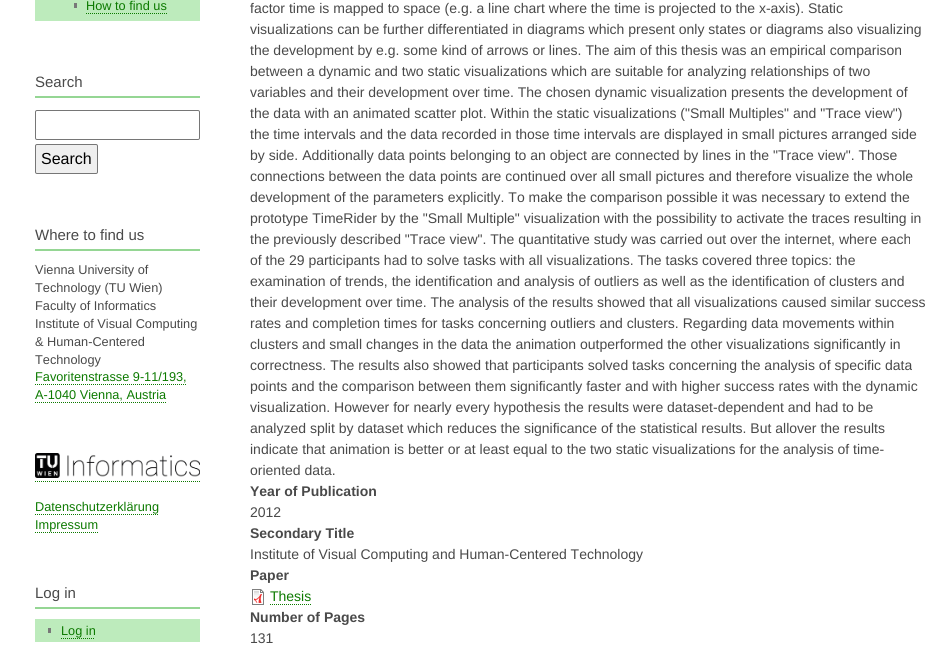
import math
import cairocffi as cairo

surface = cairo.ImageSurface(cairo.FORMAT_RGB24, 941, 652)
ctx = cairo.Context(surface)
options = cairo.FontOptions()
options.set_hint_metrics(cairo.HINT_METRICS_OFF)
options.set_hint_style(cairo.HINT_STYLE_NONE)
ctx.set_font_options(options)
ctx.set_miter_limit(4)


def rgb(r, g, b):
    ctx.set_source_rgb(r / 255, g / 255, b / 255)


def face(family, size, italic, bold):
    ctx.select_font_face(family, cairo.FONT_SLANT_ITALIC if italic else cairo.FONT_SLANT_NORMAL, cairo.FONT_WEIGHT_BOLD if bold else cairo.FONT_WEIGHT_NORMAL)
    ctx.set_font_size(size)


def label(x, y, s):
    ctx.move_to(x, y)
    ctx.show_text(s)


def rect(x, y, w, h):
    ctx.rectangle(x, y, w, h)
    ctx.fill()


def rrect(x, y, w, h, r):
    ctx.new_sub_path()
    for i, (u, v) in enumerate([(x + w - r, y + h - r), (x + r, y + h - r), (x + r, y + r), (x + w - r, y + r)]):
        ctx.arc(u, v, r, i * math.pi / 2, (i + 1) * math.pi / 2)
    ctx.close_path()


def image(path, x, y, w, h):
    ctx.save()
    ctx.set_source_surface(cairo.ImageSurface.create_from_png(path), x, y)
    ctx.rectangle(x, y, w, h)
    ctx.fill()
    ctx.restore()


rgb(255, 255, 255)
ctx.paint()
rgb(189, 235, 188)
rect(35, 0, 165, 21)
rgb(120, 120, 120)
rect(74, 3, 3, 5)
face('Liberation Sans', 12.75, 0, 0)
rgb(12, 122, 0)
label(86, 10, 'How to find us')
ctx.new_path()
ctx.move_to(86, 13.5)
ctx.line_to(167, 13.5)
ctx.set_line_width(1)
ctx.set_dash([1, 1])
ctx.stroke()
rgb(149, 214, 148)
rect(35, 96, 165, 2)
face('Liberation Sans', 15, 0, 0)
rgb(73, 73, 73)
label(35, 87, 'Search')
rrect(35.5, 110.5, 164, 29, 1.5)
rgb(118, 118, 118)
ctx.set_dash([])
ctx.stroke()
rgb(239, 239, 239)
rrect(35.5, 144.5, 62, 29, 1.5)
ctx.fill_preserve()
rgb(118, 118, 118)
ctx.stroke()
face('Liberation Sans', 16, 0, 0)
rgb(0, 0, 0)
label(41, 164, 'Search')
rgb(149, 214, 148)
rect(35, 249, 165, 2)
face('Liberation Sans', 15, 0, 0)
rgb(73, 73, 73)
label(35, 240, 'Where to find us')
face('Liberation Sans', 12.75, 0, 0)
label(35, 274, 'Vienna University of')
label(35, 292, 'Technology (TU Wien)')
label(35, 310, 'Faculty of Informatics')
label(35, 328, 'Institute of Visual Computing')
label(35, 346, '& Human-Centered')
label(35, 364, 'Technology')
rgb(12, 122, 0)
label(35, 381, 'Favoritenstrasse 9-11/193,')
ctx.new_path()
ctx.move_to(35, 384.5)
ctx.line_to(187, 384.5)
ctx.set_dash([1, 1])
ctx.stroke()
label(35, 399, 'A-1040 Vienna, Austria')
ctx.new_path()
ctx.move_to(35, 402.5)
ctx.line_to(166, 402.5)
ctx.stroke()
image('image0.png', 35, 453, 165, 25)
ctx.new_path()
ctx.move_to(35, 481.5)
ctx.line_to(200, 481.5)
ctx.stroke()
label(35, 511, 'Datenschutzerklärung')
ctx.new_path()
ctx.move_to(35, 514.5)
ctx.line_to(159, 514.5)
ctx.stroke()
label(35, 529, 'Impressum')
ctx.new_path()
ctx.move_to(35, 532.5)
ctx.line_to(98, 532.5)
ctx.stroke()
rgb(149, 214, 148)
rect(35, 607, 165, 2)
face('Liberation Sans', 15, 0, 0)
rgb(73, 73, 73)
label(35, 598, 'Log in')
rgb(189, 235, 188)
rect(35, 619, 165, 23)
rgb(120, 120, 120)
rect(48, 628, 3, 5)
face('Liberation Sans', 12.75, 0, 0)
rgb(12, 122, 0)
label(61, 635, 'Log in')
ctx.new_path()
ctx.move_to(61, 638.5)
ctx.line_to(95, 638.5)
ctx.stroke()
face('Liberation Sans', 14, 0, 0)
rgb(73, 73, 73)
label(250, 13, 'factor time is mapped to space (e.g. a line chart where the time is projected to the x-axis). Static')
label(250, 34, 'visualizations can be further differentiated in diagrams which present only states or diagrams also visualizing')
label(250, 55, 'the development by e.g. some kind of arrows or lines. The aim of this thesis was an empirical comparison')
label(250, 76, 'between a dynamic and two static visualizations which are suitable for analyzing relationships of two')
label(250, 97, 'variables and their development over time. The chosen dynamic visualization presents the development of')
label(250, 118, 'the data with an animated scatter plot. Within the static visualizations ("Small Multiples" and "Trace view")')
label(250, 139, 'the time intervals and the data recorded in those time intervals are displayed in small pictures arranged side')
label(250, 160, 'by side. Additionally data points belonging to an object are connected by lines in the "Trace view". Those')
label(250, 181, 'connections between the data points are continued over all small pictures and therefore visualize the whole')
label(250, 202, 'development of the parameters explicitly. To make the comparison possible it was necessary to extend the')
label(250, 223, 'prototype TimeRider by the "Small Multiple" visualization with the possibility to activate the traces resulting in')
label(250, 244, 'the previously described "Trace view". The quantitative study was carried out over the internet, where each')
label(250, 265, 'of the 29 participants had to solve tasks with all visualizations. The tasks covered three topics: the')
label(250, 286, 'examination of trends, the identification and analysis of outliers as well as the identification of clusters and')
label(250, 307, 'their development over time. The analysis of the results showed that all visualizations caused similar success')
label(250, 328, 'rates and completion times for tasks concerning outliers and clusters. Regarding data movements within')
label(250, 349, 'clusters and small changes in the data the animation outperformed the other visualizations significantly in')
label(250, 370, 'correctness. The results also showed that participants solved tasks concerning the analysis of specific data')
label(250, 391, 'points and the comparison between them significantly faster and with higher success rates with the dynamic')
label(250, 412, 'visualization. However for nearly every hypothesis the results were dataset-dependent and had to be')
label(250, 433, 'analyzed split by dataset which reduces the significance of the statistical results. But allover the results')
label(250, 454, 'indicate that animation is better or at least equal to the two static visualizations for the analysis of time-')
label(250, 475, 'oriented data.')
face('Liberation Sans', 14, 0, 1)
label(250, 496, 'Year of Publication')
face('Liberation Sans', 14, 0, 0)
label(250, 517, '2012')
face('Liberation Sans', 14, 0, 1)
label(250, 538, 'Secondary Title')
face('Liberation Sans', 14, 0, 0)
label(250, 559, 'Institute of Visual Computing and Human-Centered Technology')
face('Liberation Sans', 14, 0, 1)
label(250, 580, 'Paper')
image('image1.png', 252, 589, 12, 16)
face('Liberation Sans', 14, 0, 0)
rgb(12, 122, 0)
label(270, 601, 'Thesis')
ctx.new_path()
ctx.move_to(270, 604.5)
ctx.line_to(311, 604.5)
ctx.stroke()
face('Liberation Sans', 14, 0, 1)
rgb(73, 73, 73)
label(250, 622, 'Number of Pages')
face('Liberation Sans', 14, 0, 0)
label(250, 643, '131')
surface.write_to_png('render.png')
